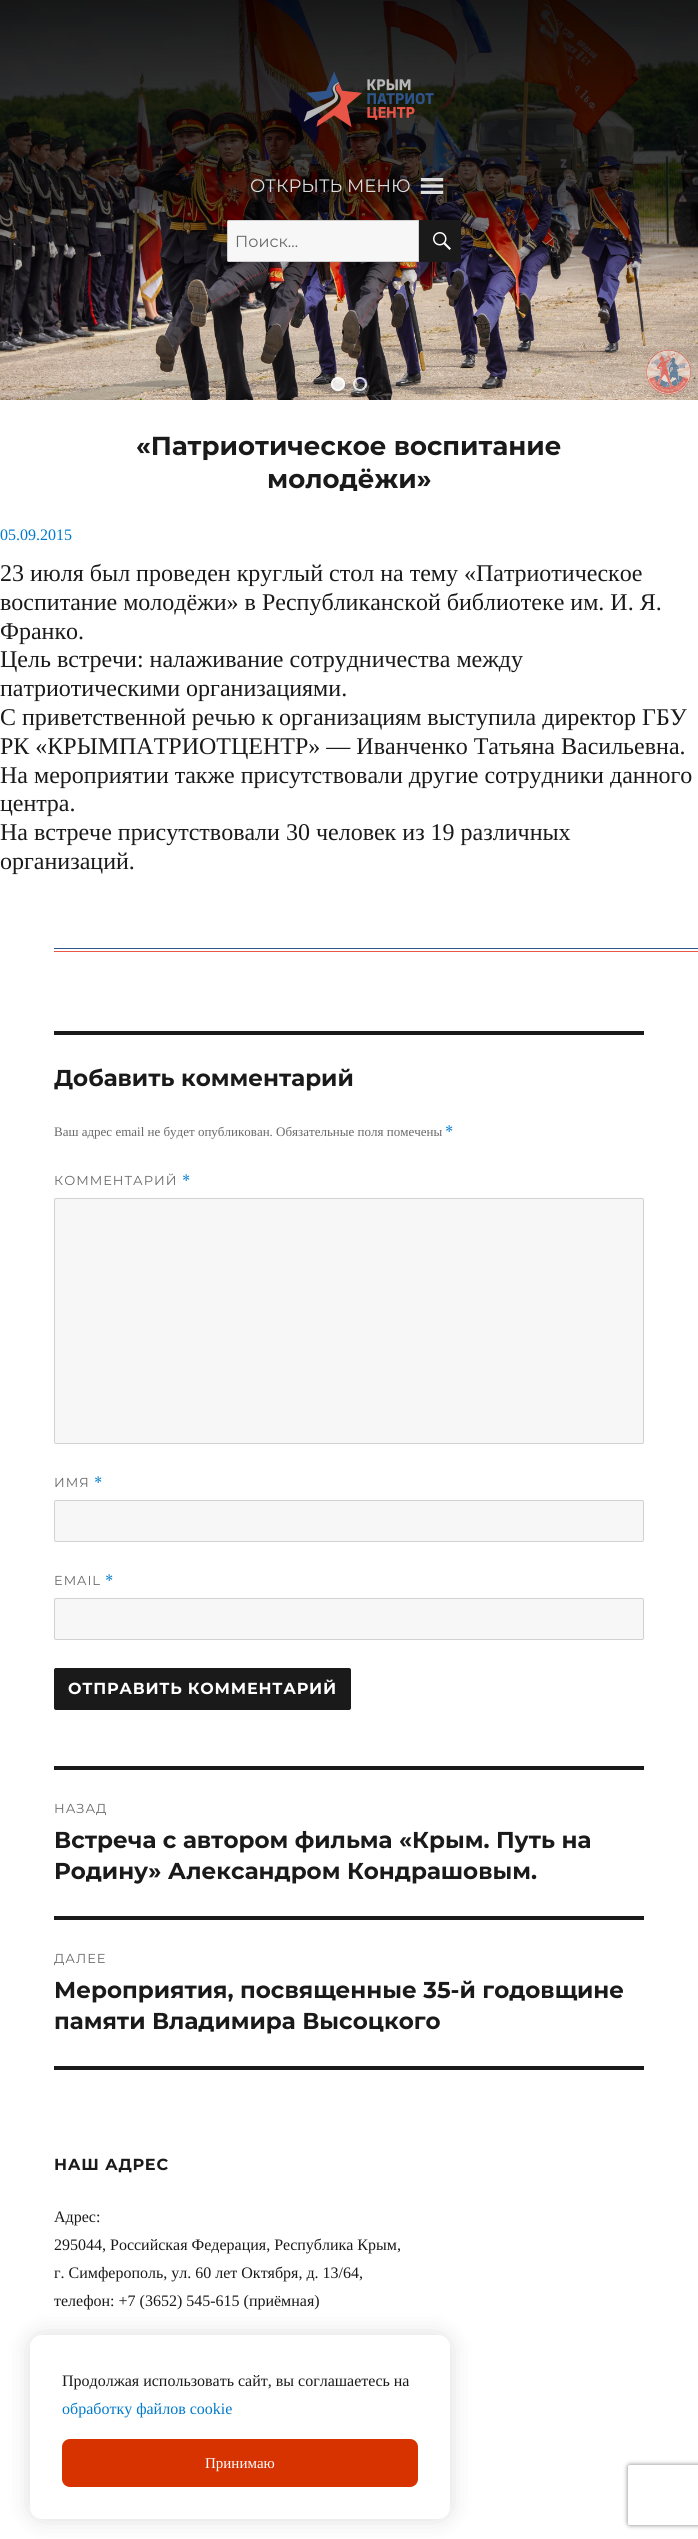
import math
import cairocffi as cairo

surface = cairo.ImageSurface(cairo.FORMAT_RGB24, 698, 2539)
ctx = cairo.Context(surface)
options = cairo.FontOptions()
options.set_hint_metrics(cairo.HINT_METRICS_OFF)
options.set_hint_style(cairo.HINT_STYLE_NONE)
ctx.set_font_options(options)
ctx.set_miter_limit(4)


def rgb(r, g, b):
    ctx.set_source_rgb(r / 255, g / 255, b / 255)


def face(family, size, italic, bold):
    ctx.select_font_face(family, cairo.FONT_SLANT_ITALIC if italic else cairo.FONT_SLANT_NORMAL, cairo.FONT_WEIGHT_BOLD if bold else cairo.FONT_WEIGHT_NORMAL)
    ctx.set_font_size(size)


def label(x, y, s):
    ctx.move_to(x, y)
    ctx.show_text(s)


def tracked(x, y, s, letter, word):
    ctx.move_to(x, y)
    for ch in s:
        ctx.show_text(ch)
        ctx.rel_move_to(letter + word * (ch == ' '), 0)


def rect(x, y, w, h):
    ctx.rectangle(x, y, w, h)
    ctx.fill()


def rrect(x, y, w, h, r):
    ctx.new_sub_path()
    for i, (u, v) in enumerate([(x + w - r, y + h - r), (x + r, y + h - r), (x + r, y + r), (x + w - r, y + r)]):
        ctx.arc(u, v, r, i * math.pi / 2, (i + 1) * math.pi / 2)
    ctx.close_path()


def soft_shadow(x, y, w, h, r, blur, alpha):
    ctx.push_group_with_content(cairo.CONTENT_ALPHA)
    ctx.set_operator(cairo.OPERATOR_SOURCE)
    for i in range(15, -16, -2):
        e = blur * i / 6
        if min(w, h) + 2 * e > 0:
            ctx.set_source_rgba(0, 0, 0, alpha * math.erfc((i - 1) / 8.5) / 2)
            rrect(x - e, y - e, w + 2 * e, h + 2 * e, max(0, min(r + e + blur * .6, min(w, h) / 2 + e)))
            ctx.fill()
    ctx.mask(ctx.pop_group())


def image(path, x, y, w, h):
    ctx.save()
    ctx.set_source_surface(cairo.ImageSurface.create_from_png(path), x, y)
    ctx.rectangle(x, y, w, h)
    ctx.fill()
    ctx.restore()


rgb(255, 255, 255)
ctx.paint()
image('image0.png', 0, 0, 698, 400)
ctx.set_source_rgba(1, 1, 1, 0.8)
ctx.arc(338, 384, 7, 0, 2 * math.pi)
ctx.fill()
ctx.arc(338, 384, 6, 0, 2 * math.pi)
ctx.stroke()
ctx.arc(360, 384, 6, 0, 2 * math.pi)
ctx.stroke()
gradient = cairo.LinearGradient(349, 0, 349, 304)
gradient.add_color_stop_rgba(0, 0, 0, 0, 0.9)
gradient.add_color_stop_rgba(0.65, 0, 0, 0, 0.7)
gradient.add_color_stop_rgba(0.95, 0, 0, 0, 0)
ctx.set_source(gradient)
rect(0, 0, 698, 286)
image('image1.png', 303, 71, 131, 56)
face('Montserrat', 18, 0, 0)
rgb(221, 221, 221)
label(250, 192, 'ОТКРЫТЬ МЕНЮ')
image('image2.png', 420, 178, 24, 16)
rgb(247, 247, 247)
ctx.new_path()
ctx.move_to(229, 220.5)
ctx.line_to(418.5, 220.5)
ctx.line_to(418.5, 261.5)
ctx.line_to(229, 261.5)
ctx.curve_to(228, 261.5, 227.5, 261, 227.5, 260)
ctx.line_to(227.5, 222)
ctx.curve_to(227.5, 221, 228, 220.5, 229, 220.5)
ctx.close_path()
ctx.fill_preserve()
rgb(209, 209, 209)
ctx.set_line_width(1)
ctx.stroke()
face('Montserrat', 16, 0, 0)
rgb(104, 104, 104)
label(235, 247, 'Поиск…')
rgb(26, 26, 26)
ctx.new_path()
ctx.move_to(419, 220)
ctx.line_to(459, 220)
ctx.curve_to(460, 220, 461, 221, 461, 222)
ctx.line_to(461, 260)
ctx.curve_to(461, 261, 460, 262, 459, 262)
ctx.line_to(419, 262)
ctx.close_path()
ctx.fill()
image('image3.png', 433, 232, 18, 18)
face('Montserrat', 26, 0, 1)
label(136, 455, '«Патриотическое воспитание')
label(267, 488, 'молодёжи»')
face('Liberation Serif', 16, 0, 0)
rgb(0, 122, 204)
label(0, 540, '05.09.2015')
face('Liberation Serif', 24, 0, 0)
rgb(26, 26, 26)
label(0, 581, '23 июля был проведен круглый стол на тему «Патриотическое')
label(0, 610, 'воспитание молодёжи» в Республиканской библиотеке им. И. Я.')
label(0, 639, 'Франко.')
label(0, 667, 'Цель встречи: налаживание сотрудничества между')
label(0, 696, 'патриотическими организациями.')
label(0, 725, 'С приветственной речью к организациям выступила директор ГБУ')
label(0, 754, 'РК «КРЫМПАТРИОТЦЕНТР» — Иванченко Татьяна Васильевна.')
label(0, 783, 'На мероприятии также присутствовали другие сотрудники данного')
label(0, 811, 'центра.')
label(0, 840, 'На встрече присутствовали 30 человек из 19 различных')
label(0, 869, 'организаций.')
rgb(49, 86, 139)
rect(54, 948, 644, 1)
rgb(233, 86, 71)
rect(54, 951, 644, 1)
rgb(26, 26, 26)
rect(54, 1031, 590, 4)
face('Montserrat', 23, 0, 1)
label(54, 1086, 'Добавить комментарий')
face('Liberation Serif', 13, 0, 0)
rgb(104, 104, 104)
label(54, 1136, 'Ваш адрес email не будет опубликован. Обязательные поля помечены')
face('Merriweather', 13, 0, 0)
rgb(0, 122, 204)
label(445, 1136, '*')
face('Montserrat', 13, 0, 0)
rgb(104, 104, 104)
tracked(54, 1185, 'КОММЕНТАРИЙ', 1, 0)
face('Merriweather', 13, 0, 0)
rgb(0, 122, 204)
tracked(182, 1185, '*', 1, 0)
rgb(247, 247, 247)
rrect(54.5, 1198.5, 589, 245, 1.5)
ctx.fill_preserve()
rgb(209, 209, 209)
ctx.stroke()
face('Montserrat', 13, 0, 0)
rgb(104, 104, 104)
tracked(54, 1487, 'ИМЯ', 1, 0)
face('Merriweather', 13, 0, 0)
rgb(0, 122, 204)
tracked(94, 1487, '*', 1, 0)
rgb(247, 247, 247)
rrect(54.5, 1500.5, 589, 41, 1.5)
ctx.fill_preserve()
rgb(209, 209, 209)
ctx.stroke()
face('Montserrat', 13, 0, 0)
rgb(104, 104, 104)
tracked(54, 1585, 'EMAIL', 1, 0)
face('Merriweather', 13, 0, 0)
rgb(0, 122, 204)
tracked(105, 1585, '*', 1, 0)
rgb(247, 247, 247)
rrect(54.5, 1598.5, 589, 41, 1.5)
ctx.fill_preserve()
rgb(209, 209, 209)
ctx.stroke()
rgb(26, 26, 26)
rrect(54, 1668, 297, 42, 2)
ctx.fill()
face('Montserrat', 16, 0, 1)
rgb(255, 255, 255)
tracked(68, 1694, 'ОТПРАВИТЬ КОММЕНТАРИЙ', 0.75, 0)
rgb(26, 26, 26)
rect(54, 1766, 590, 4)
rect(54, 2066, 590, 4)
face('Montserrat', 13, 0, 0)
rgb(104, 104, 104)
tracked(54, 1813, 'НАЗАД', 1, 0)
face('Montserrat', 23, 0, 1)
rgb(26, 26, 26)
label(54, 1848, 'Встреча с автором фильма «Крым. Путь на')
label(54, 1879, 'Родину» Александром Кондрашовым.')
rect(54, 1916, 590, 4)
face('Montserrat', 13, 0, 0)
rgb(104, 104, 104)
tracked(54, 1963, 'ДАЛЕЕ', 1, 0)
face('Montserrat', 23, 0, 1)
rgb(26, 26, 26)
label(54, 1998, 'Мероприятия, посвященные 35-й годовщине')
label(54, 2029, 'памяти Владимира Высоцкого')
face('Montserrat', 16, 0, 1)
tracked(54, 2170, 'НАШ АДРЕС', 0.75, 0)
face('Liberation Serif', 16, 0, 0)
label(54, 2222, 'Адрес:')
label(54, 2250, '295044, Российская Федерация, Республика Крым,')
label(54, 2278, 'г. Симферополь, ул. 60 лет Октября, д. 13/64,')
label(54, 2306, 'телефон: +7 (3652) 545-615 (приёмная)')
rgb(25, 25, 25)
soft_shadow(30, 2335, 420, 184, 12, 12, 0.15)
rgb(255, 255, 255)
rrect(30, 2335, 420, 184, 12)
ctx.fill()
rgb(26, 26, 26)
label(62, 2386, 'Продолжая использовать сайт, вы соглашаетесь на')
rgb(0, 122, 204)
label(62, 2414, 'обработку файлов cookie')
rgb(215, 51, 1)
rrect(62, 2439, 356, 48, 8)
ctx.fill()
face('Liberation Serif', 15, 0, 0)
rgb(255, 255, 255)
label(205, 2468, 'Принимаю')
ctx.save()
ctx.set_fill_rule(cairo.FILL_RULE_EVEN_ODD)
ctx.new_path()
ctx.move_to(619, 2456)
ctx.line_to(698, 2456)
ctx.line_to(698, 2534)
ctx.line_to(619, 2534)
ctx.close_path()
ctx.move_to(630, 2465)
ctx.line_to(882, 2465)
ctx.curve_to(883, 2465, 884, 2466, 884, 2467)
ctx.line_to(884, 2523)
ctx.curve_to(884, 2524, 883, 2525, 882, 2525)
ctx.line_to(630, 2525)
ctx.curve_to(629, 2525, 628, 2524, 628, 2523)
ctx.line_to(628, 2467)
ctx.curve_to(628, 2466, 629, 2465, 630, 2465)
ctx.close_path()
ctx.clip()
rgb(128, 128, 128)
soft_shadow(628, 2465, 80, 60, 2, 2.5, 1)
ctx.restore()
surface.write_to_png('render.png')
